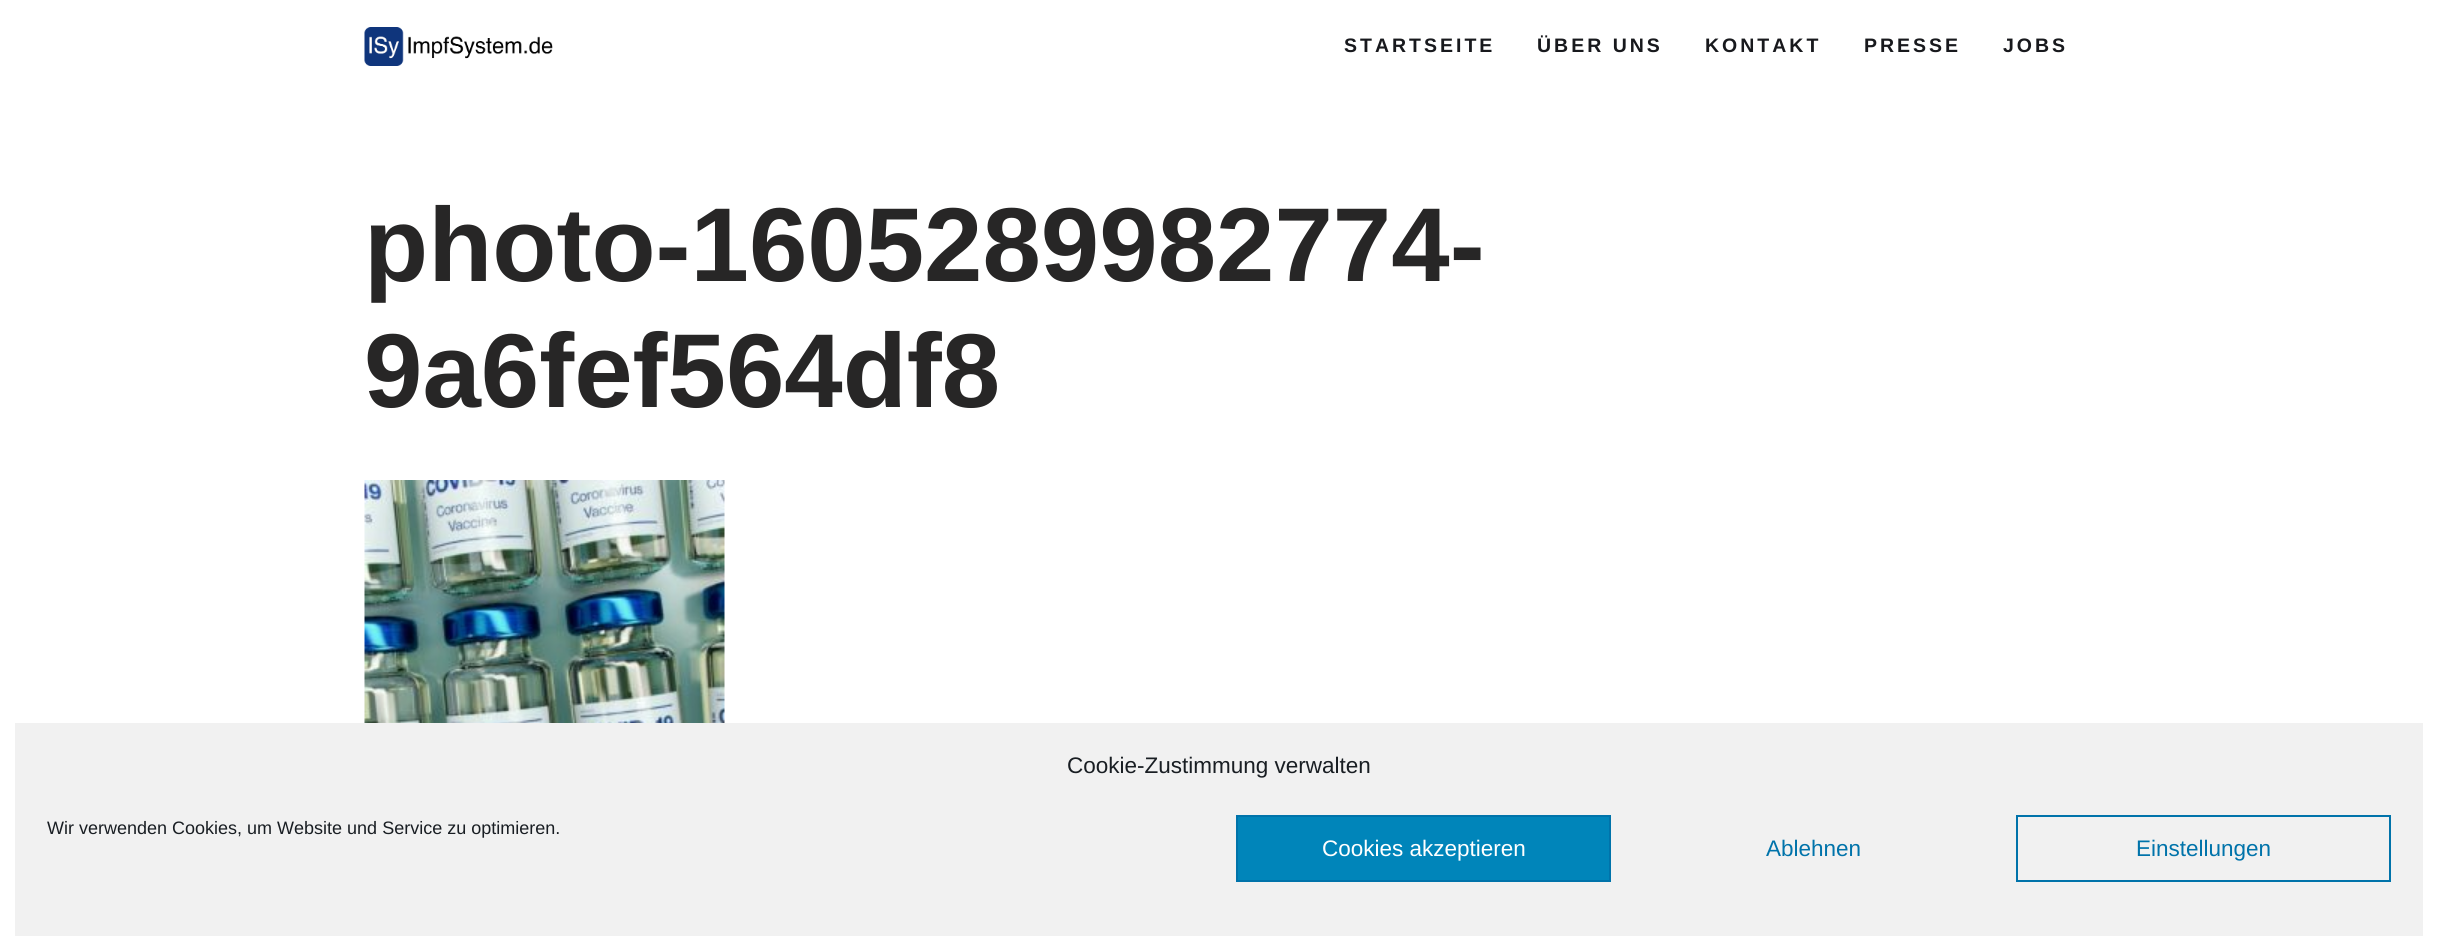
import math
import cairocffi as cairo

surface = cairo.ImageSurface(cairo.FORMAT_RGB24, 2437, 950)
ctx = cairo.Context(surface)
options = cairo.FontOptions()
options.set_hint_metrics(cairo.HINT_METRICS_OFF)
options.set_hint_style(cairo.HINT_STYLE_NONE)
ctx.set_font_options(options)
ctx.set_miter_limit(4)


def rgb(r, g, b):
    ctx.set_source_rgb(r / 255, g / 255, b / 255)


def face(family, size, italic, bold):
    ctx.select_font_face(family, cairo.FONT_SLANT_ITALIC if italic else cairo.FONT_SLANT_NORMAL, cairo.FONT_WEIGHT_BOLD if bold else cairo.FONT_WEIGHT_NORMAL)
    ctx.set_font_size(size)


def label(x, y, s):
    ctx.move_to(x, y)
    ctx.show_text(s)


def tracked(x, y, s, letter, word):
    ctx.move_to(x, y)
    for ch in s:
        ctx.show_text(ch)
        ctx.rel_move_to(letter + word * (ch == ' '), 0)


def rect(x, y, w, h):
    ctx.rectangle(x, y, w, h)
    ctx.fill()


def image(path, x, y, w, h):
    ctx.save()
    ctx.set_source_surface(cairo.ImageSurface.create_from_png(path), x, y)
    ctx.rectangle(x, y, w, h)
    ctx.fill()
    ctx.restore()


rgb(255, 255, 255)
ctx.paint()
image('image0.png', 364, 27, 189, 39)
face('Liberation Sans', 19.5, 0, 1)
rgb(24, 25, 29)
tracked(1344, 52, 'STARTSEITE', 3, 0)
tracked(1537, 52, 'ÜBER UNS', 3, 0)
tracked(1705, 52, 'KONTAKT', 3, 0)
tracked(1864, 52, 'PRESSE', 3, 0)
tracked(2003, 52, 'JOBS', 3, 0)
face('Liberation Sans', 105, 0, 1)
rgb(39, 38, 38)
label(364, 281, 'photo-1605289982774-')
label(364, 407, '9a6fef564df8')
image('image1.png', 364, 480, 361, 243)
rgb(241, 241, 241)
rect(15, 723, 2408, 213)
face('Liberation Sans', 22.5, 0, 0)
rgb(25, 30, 35)
label(1067, 773, 'Cookie-Zustimmung verwalten')
face('Liberation Sans', 18, 0, 0)
label(47, 834, 'Wir verwenden Cookies, um Website und Service zu optimieren.')
rgb(0, 133, 186)
ctx.rectangle(1237, 816, 373, 65)
ctx.fill_preserve()
rgb(0, 115, 170)
ctx.stroke()
face('Liberation Sans', 22.5, 0, 0)
rgb(255, 255, 255)
label(1322, 856, 'Cookies akzeptieren')
rgb(0, 115, 170)
label(1766, 856, 'Ablehnen')
ctx.rectangle(2017, 816, 373, 65)
ctx.stroke()
label(2136, 856, 'Einstellungen')
surface.write_to_png('render.png')
